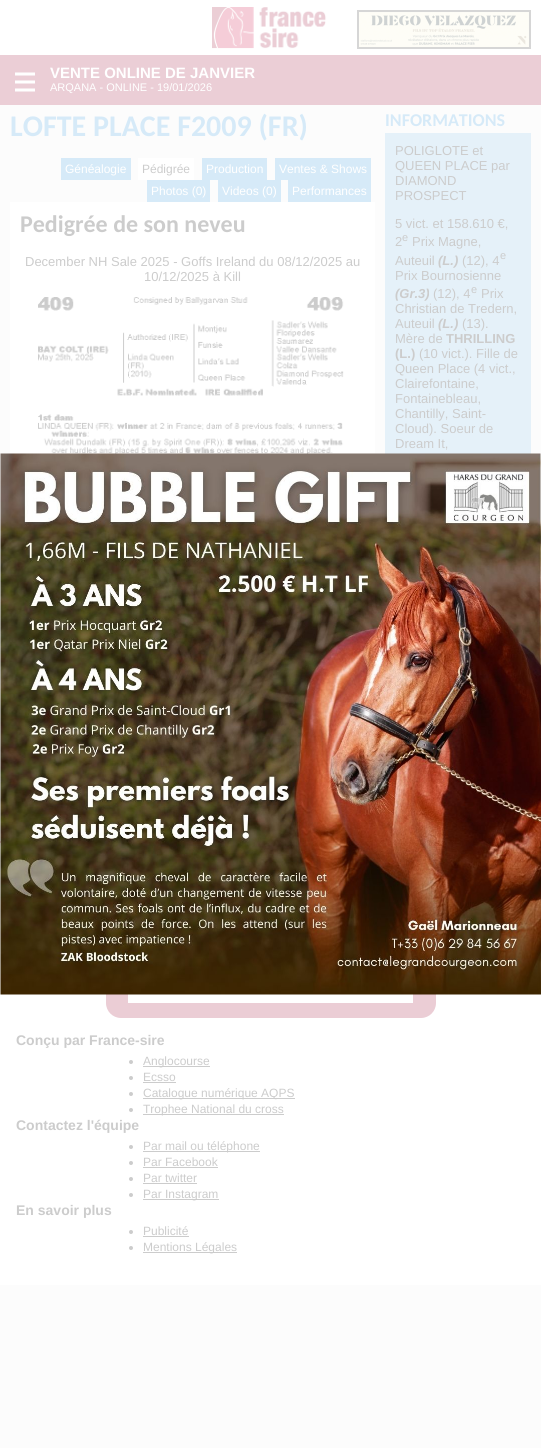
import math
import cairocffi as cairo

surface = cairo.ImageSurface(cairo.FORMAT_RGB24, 541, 1448)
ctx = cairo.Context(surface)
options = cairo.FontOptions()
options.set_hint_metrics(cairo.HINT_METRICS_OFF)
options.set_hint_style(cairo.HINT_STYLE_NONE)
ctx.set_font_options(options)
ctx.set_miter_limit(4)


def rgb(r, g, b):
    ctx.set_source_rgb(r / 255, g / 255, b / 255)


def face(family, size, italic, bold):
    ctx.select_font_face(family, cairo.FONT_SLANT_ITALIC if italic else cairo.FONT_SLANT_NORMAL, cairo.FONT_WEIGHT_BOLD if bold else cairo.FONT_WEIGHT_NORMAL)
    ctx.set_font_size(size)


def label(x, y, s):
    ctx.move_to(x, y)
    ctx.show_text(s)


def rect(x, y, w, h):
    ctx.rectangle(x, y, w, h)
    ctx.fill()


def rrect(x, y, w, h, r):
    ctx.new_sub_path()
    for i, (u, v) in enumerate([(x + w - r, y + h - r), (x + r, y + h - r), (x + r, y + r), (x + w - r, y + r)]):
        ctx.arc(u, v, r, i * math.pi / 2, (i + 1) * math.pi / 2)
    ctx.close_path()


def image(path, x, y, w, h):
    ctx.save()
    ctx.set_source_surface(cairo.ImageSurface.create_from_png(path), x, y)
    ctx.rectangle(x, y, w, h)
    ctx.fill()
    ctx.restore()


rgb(252, 252, 252)
ctx.paint()
rgb(255, 255, 255)
rect(0, 0, 541, 55)
image('image0.png', 212, 7, 115, 42)
ctx.rectangle(358, 11, 172, 37)
rgb(214, 214, 214)
ctx.stroke()
image('image1.png', 359, 12, 170, 35)
rgb(235, 206, 214)
rect(0, 55, 541, 50)
image('image2.png', 15, 72, 20, 20)
face('Liberation Sans', 15, 0, 1)
rgb(255, 255, 255)
label(50, 78, 'VENTE ONLINE DE JANVIER')
face('Liberation Sans', 11, 0, 0)
label(50, 91, 'ARQANA - ONLINE - 19/01/2026')
face('Carlito', 30, 0, 1)
rgb(214, 234, 248)
label(10, 136, 'LOFTE PLACE F2009 (FR)')
rect(61, 158, 70, 22)
face('Liberation Sans', 12, 0, 0)
rgb(255, 255, 255)
label(65, 173, 'Généalogie')
rect(138, 158, 56, 22)
rgb(204, 204, 204)
label(142, 173, 'Pédigrée')
rgb(214, 234, 248)
rect(202, 158, 65, 22)
rgb(255, 255, 255)
label(206, 173, 'Production')
rgb(214, 234, 248)
rect(275, 158, 96, 22)
rgb(255, 255, 255)
label(279, 173, 'Ventes & Shows')
rgb(214, 234, 248)
rect(147, 180, 63, 22)
rgb(255, 255, 255)
label(151, 195, 'Photos (0)')
rgb(214, 234, 248)
rect(218, 180, 63, 22)
rgb(255, 255, 255)
label(222, 195, 'Videos (0)')
rgb(214, 234, 248)
rect(288, 180, 83, 22)
rgb(255, 255, 255)
label(292, 195, 'Performances')
rect(10, 202, 365, 252)
face('Carlito', 24, 0, 1)
rgb(204, 204, 204)
label(20, 232, 'Pedigrée de son neveu')
face('Liberation Sans', 13, 0, 0)
label(25, 266, 'December NH Sale 2025 - Goffs Ireland du 08/12/2025 au')
label(144, 281, '10/12/2025 à Kill')
image('image3.png', 37, 297, 307, 157)
face('Carlito', 18, 0, 1)
rgb(214, 234, 248)
label(385, 126, 'INFORMATIONS')
rgb(229, 241, 249)
rect(385, 133, 146, 321)
face('Liberation Sans', 13, 0, 0)
rgb(204, 204, 204)
label(395, 155, 'POLIGLOTE et')
label(395, 170, 'QUEEN PLACE par')
label(395, 185, 'DIAMOND')
label(395, 200, 'PROSPECT')
label(395, 228, '5 vict. et 158.610 €,')
label(395, 246, '2')
face('Liberation Sans', 11, 0, 0)
label(402, 241, 'e')
face('Liberation Sans', 13, 0, 0)
label(412, 246, 'Prix Magne,')
label(395, 265, 'Auteuil')
face('Liberation Sans', 13, 1, 1)
label(438, 265, '(L.)')
face('Liberation Sans', 13, 0, 0)
label(462, 265, '(12), 4')
face('Liberation Sans', 11, 0, 0)
label(500, 259, 'e')
face('Liberation Sans', 13, 0, 0)
label(395, 280, 'Prix Bournosienne')
face('Liberation Sans', 13, 1, 1)
label(395, 298, '(Gr.3)')
face('Liberation Sans', 13, 0, 0)
label(433, 298, '(12), 4')
face('Liberation Sans', 11, 0, 0)
label(471, 293, 'e')
face('Liberation Sans', 13, 0, 0)
label(481, 298, 'Prix')
label(395, 313, 'Christian de Tredern,')
label(395, 328, 'Auteuil')
face('Liberation Sans', 13, 1, 1)
label(438, 328, '(L.)')
face('Liberation Sans', 13, 0, 0)
label(462, 328, '(13).')
label(395, 343, 'Mère de')
face('Liberation Sans', 13, 0, 1)
label(446, 343, 'THRILLING')
label(395, 358, '(L.)')
face('Liberation Sans', 13, 0, 0)
label(419, 358, '(10 vict.). Fille de')
label(395, 373, 'Queen Place (4 vict.,')
label(395, 388, 'Clairefontaine,')
label(395, 403, 'Fontainebleau,')
label(395, 418, 'Chantilly, Saint-')
label(395, 433, 'Cloud). Soeur de')
label(395, 448, 'Dream It,')
rgb(255, 255, 255)
rect(0, 843, 541, 442)
rgb(235, 205, 213)
rect(0, 841, 1, 2)
rrect(106, 873, 330, 145, 15)
ctx.fill()
rgb(255, 255, 255)
rect(128, 994, 285, 9)
image('image4.png', 0, 453, 541, 542)
face('Liberation Sans', 14, 0, 1)
rgb(204, 204, 204)
label(16, 1045, 'Conçu par France-sire')
ctx.new_path()
ctx.arc(131, 1062, 2, 0, 2 * math.pi)
ctx.fill()
rect(143, 1066, 67, 1)
face('Liberation Sans', 12, 0, 0)
label(143, 1065, 'Anglocourse')
ctx.new_path()
ctx.arc(131, 1078, 2, 0, 2 * math.pi)
ctx.fill()
label(143, 1081, 'Ecsso')
rect(143, 1082, 33, 1)
ctx.new_path()
ctx.arc(131, 1094, 2, 0, 2 * math.pi)
ctx.fill()
rect(143, 1098, 152, 1)
label(143, 1097, 'Catalogue numérique AQPS')
ctx.new_path()
ctx.arc(131, 1110, 2, 0, 2 * math.pi)
ctx.fill()
rect(143, 1114, 141, 1)
label(143, 1113, 'Trophee National du cross')
face('Liberation Sans', 14, 0, 1)
label(16, 1130, 'Contactez l\'équipe')
ctx.new_path()
ctx.arc(131, 1147, 2, 0, 2 * math.pi)
ctx.fill()
rect(143, 1151, 117, 1)
face('Liberation Sans', 12, 0, 0)
label(143, 1150, 'Par mail ou téléphone')
ctx.new_path()
ctx.arc(131, 1163, 2, 0, 2 * math.pi)
ctx.fill()
label(143, 1166, 'Par Facebook')
rect(143, 1167, 75, 1)
ctx.new_path()
ctx.arc(131, 1179, 2, 0, 2 * math.pi)
ctx.fill()
label(143, 1182, 'Par twitter')
rect(143, 1183, 54, 1)
ctx.new_path()
ctx.arc(131, 1195, 2, 0, 2 * math.pi)
ctx.fill()
rect(143, 1199, 76, 1)
label(143, 1198, 'Par Instagram')
face('Liberation Sans', 14, 0, 1)
label(16, 1215, 'En savoir plus')
ctx.new_path()
ctx.arc(131, 1232, 2, 0, 2 * math.pi)
ctx.fill()
face('Liberation Sans', 12, 0, 0)
label(143, 1235, 'Publicité')
rect(143, 1236, 46, 1)
ctx.new_path()
ctx.arc(131, 1248, 2, 0, 2 * math.pi)
ctx.fill()
rect(143, 1252, 94, 1)
label(143, 1251, 'Mentions Légales')
surface.write_to_png('render.png')
